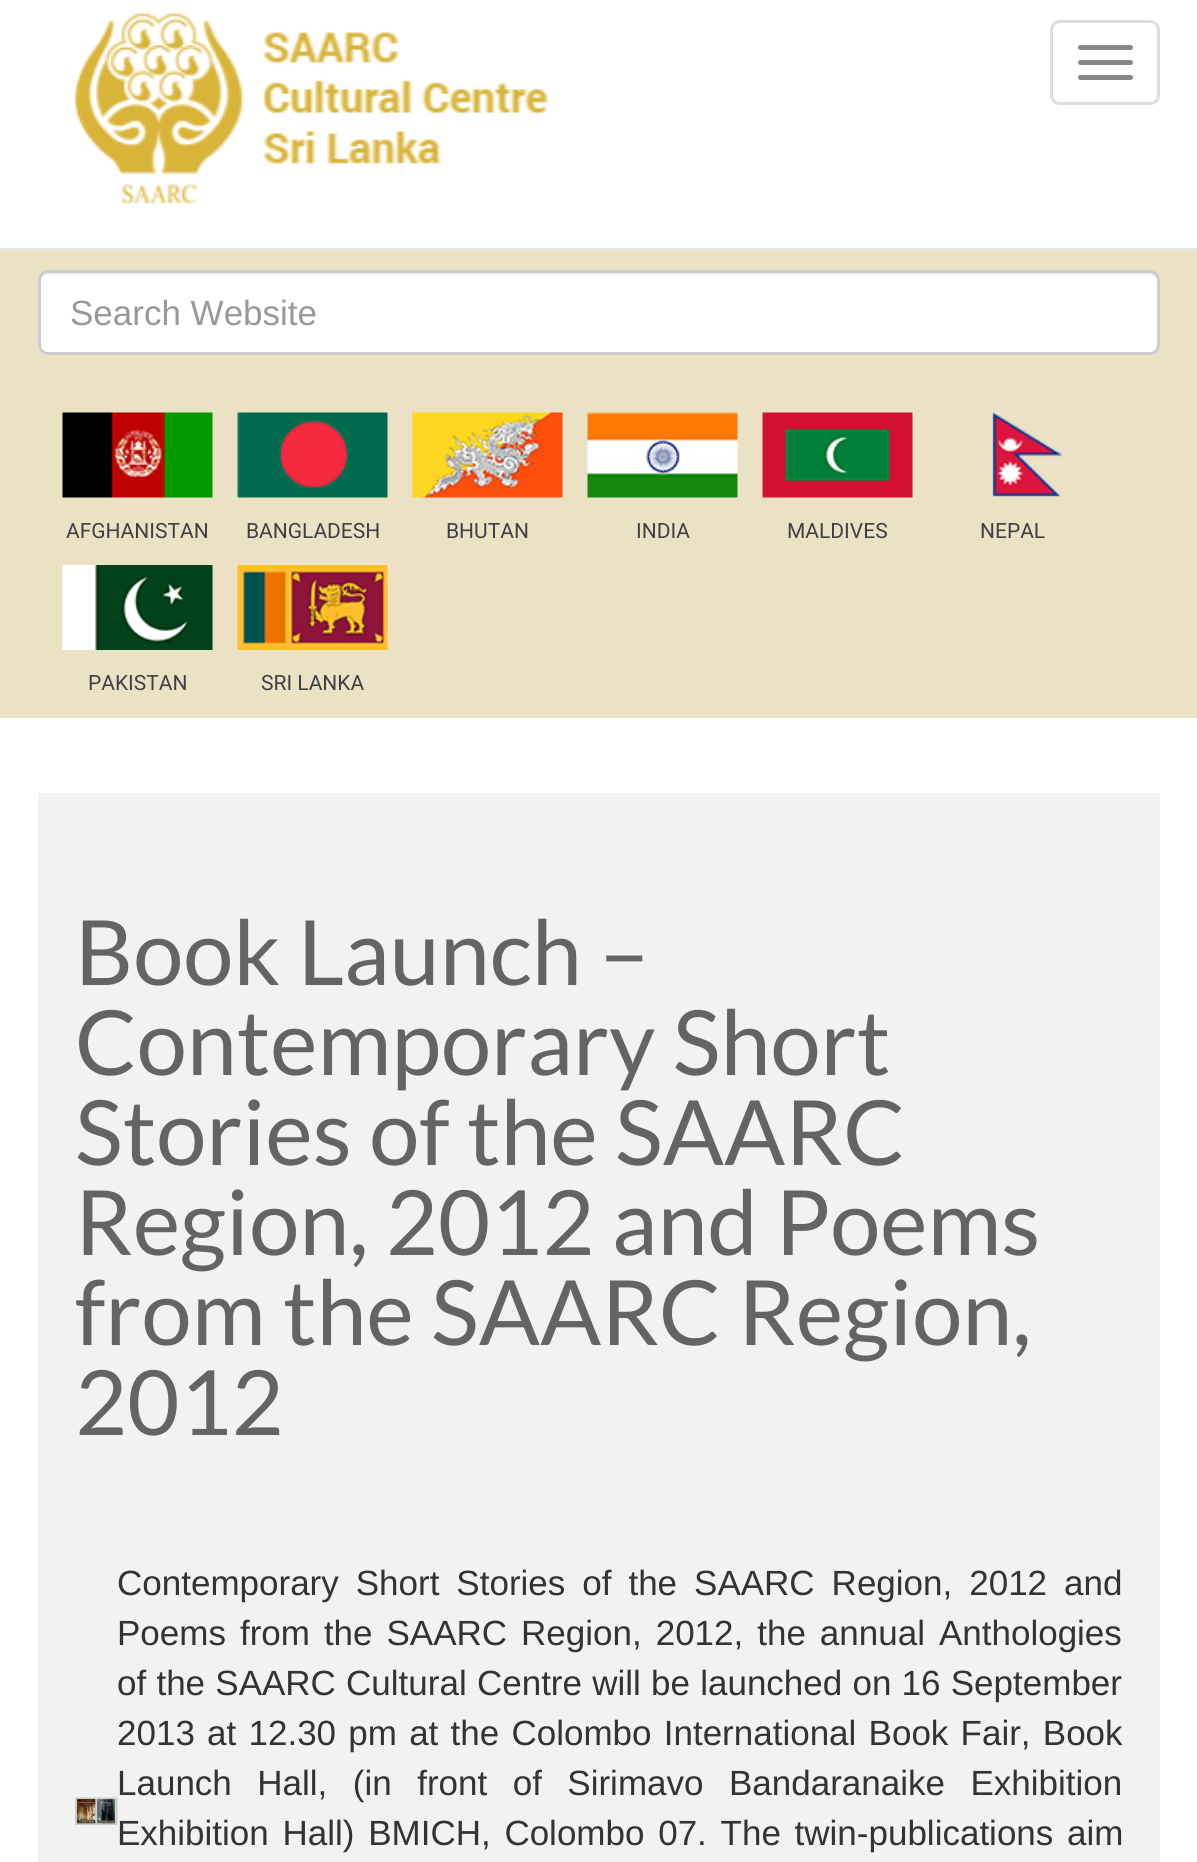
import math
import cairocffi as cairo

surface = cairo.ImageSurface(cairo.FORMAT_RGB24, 1197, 1862)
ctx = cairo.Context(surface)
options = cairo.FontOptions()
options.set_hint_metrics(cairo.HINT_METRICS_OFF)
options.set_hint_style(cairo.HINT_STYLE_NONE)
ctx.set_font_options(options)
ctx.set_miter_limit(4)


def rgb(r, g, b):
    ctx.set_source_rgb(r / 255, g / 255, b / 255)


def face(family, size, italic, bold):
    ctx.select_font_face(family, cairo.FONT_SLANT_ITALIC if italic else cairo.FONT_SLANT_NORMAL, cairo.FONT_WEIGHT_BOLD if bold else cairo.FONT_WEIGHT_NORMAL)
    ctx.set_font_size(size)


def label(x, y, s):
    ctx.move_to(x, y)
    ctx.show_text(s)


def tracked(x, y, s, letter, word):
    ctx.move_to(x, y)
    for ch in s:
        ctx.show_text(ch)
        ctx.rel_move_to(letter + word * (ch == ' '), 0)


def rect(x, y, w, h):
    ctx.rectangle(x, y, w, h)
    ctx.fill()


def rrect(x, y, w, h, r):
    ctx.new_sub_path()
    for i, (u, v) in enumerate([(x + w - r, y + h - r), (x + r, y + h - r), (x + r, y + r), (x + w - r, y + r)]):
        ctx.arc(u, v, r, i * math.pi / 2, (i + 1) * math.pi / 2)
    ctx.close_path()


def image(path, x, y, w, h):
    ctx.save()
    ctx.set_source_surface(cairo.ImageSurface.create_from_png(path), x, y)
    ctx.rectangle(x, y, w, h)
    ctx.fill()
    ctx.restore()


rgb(255, 255, 255)
ctx.paint()
rgb(231, 231, 231)
rect(0, 248, 1197, 3)
image('image0.png', 74, 13, 475, 191)
rrect(1051.5, 21.5, 107, 82, 8.5)
rgb(221, 221, 221)
ctx.set_line_width(3)
ctx.stroke()
rgb(136, 136, 136)
rrect(1078, 45, 55, 5, 2.5)
ctx.fill()
rrect(1078, 60, 55, 5, 2.5)
ctx.fill()
rrect(1078, 75, 55, 5, 2.5)
ctx.fill()
rgb(235, 226, 198)
rect(0, 251, 1197, 467)
rgb(255, 255, 255)
rrect(38, 270, 1122, 85, 10)
ctx.fill()
rgb(236, 236, 236)
ctx.new_path()
ctx.move_to(48, 275)
ctx.line_to(1150, 275)
ctx.curve_to(1154, 275, 1158, 278, 1158, 282)
ctx.line_to(1158, 281)
ctx.curve_to(1158, 277, 1154, 273, 1150, 273)
ctx.line_to(48, 273)
ctx.curve_to(44, 273, 40, 277, 40, 281)
ctx.line_to(40, 282)
ctx.curve_to(40, 278, 43, 275, 48, 275)
ctx.close_path()
ctx.fill()
rrect(39.5, 271.5, 1119, 82, 8.5)
rgb(204, 204, 204)
ctx.stroke()
face('Liberation Sans', 35, 0, 0)
rgb(153, 153, 153)
label(70, 325, 'Search Website')
image('image1.png', 62, 412, 151, 86)
face('Roboto', 21, 0, 0)
rgb(64, 64, 64)
label(66, 538, 'AFGHANISTAN')
image('image2.png', 237, 412, 151, 86)
label(246, 538, 'BANGLADESH')
image('image3.png', 412, 412, 151, 86)
label(446, 538, 'BHUTAN')
image('image4.png', 587, 412, 151, 86)
label(636, 538, 'INDIA')
image('image5.png', 762, 412, 151, 86)
label(787, 538, 'MALDIVES')
image('image6.png', 992, 412, 71, 85)
label(980, 538, 'NEPAL')
image('image7.png', 62, 565, 151, 85)
label(88, 690, 'PAKISTAN')
image('image8.png', 237, 565, 151, 85)
label(261, 690, 'SRI LANKA')
rgb(242, 242, 242)
rect(38, 793, 1122, 1069)
face('Lato', 90, 0, 0)
rgb(100, 100, 100)
label(75, 985, 'Book Launch –')
label(75, 1075, 'Contemporary Short')
label(75, 1165, 'Stories of the SAARC')
label(75, 1255, 'Region, 2012 and Poems')
label(75, 1345, 'from the SAARC Region,')
label(75, 1435, '2012')
image('image9.png', 75, 1797, 43, 28)
face('Liberation Sans', 35, 0, 0)
rgb(51, 51, 51)
tracked(117, 1595, 'Contemporary Short Stories of the SAARC Region, 2012 and', 0, 7.25)
tracked(117, 1645, 'Poems from the SAARC Region, 2012, the annual Anthologies', 0, 4.25)
tracked(117, 1695, 'of the SAARC Cultural Centre will be launched on 16 September', 0, 0.5)
tracked(117, 1745, '2013 at 12.30 pm at the Colombo International Book Fair, Book', 0, 2.5)
tracked(117, 1795, 'Launch Hall, (in front of Sirimavo Bandaranaike Exhibition', 0, 15.75)
tracked(117, 1845, 'Exhibition Hall) BMICH, Colombo 07. The twin-publications aim', 0, 4)
surface.write_to_png('render.png')
